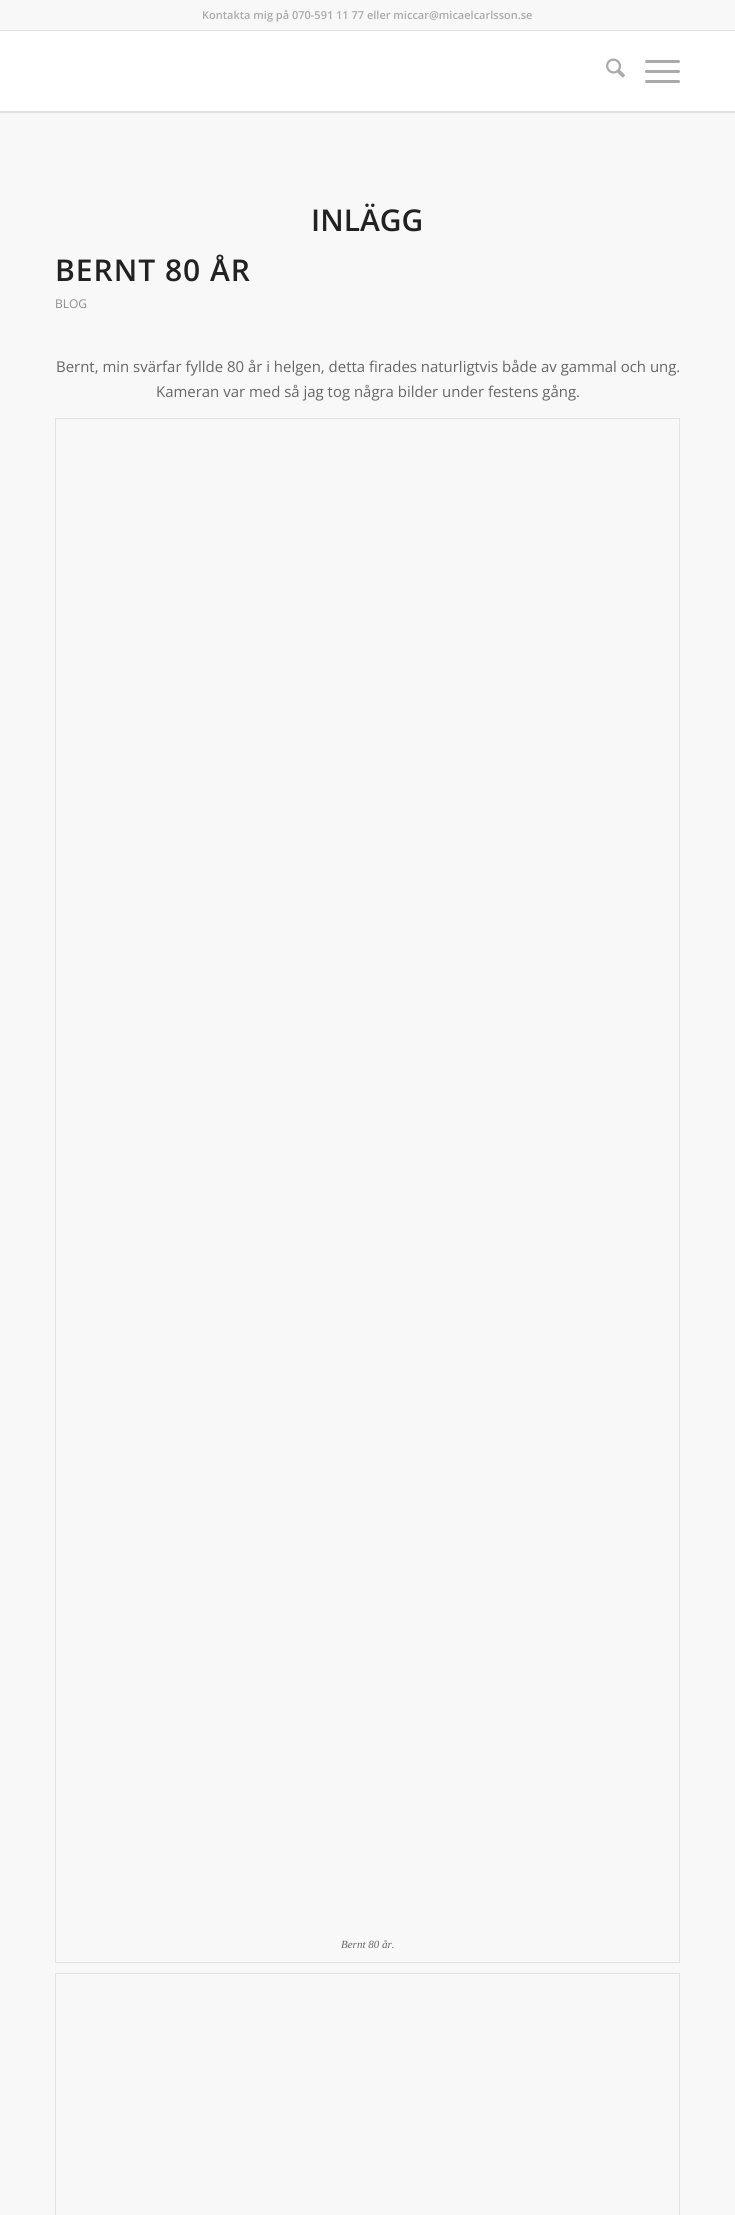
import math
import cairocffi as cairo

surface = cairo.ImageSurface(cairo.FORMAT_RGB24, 735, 2215)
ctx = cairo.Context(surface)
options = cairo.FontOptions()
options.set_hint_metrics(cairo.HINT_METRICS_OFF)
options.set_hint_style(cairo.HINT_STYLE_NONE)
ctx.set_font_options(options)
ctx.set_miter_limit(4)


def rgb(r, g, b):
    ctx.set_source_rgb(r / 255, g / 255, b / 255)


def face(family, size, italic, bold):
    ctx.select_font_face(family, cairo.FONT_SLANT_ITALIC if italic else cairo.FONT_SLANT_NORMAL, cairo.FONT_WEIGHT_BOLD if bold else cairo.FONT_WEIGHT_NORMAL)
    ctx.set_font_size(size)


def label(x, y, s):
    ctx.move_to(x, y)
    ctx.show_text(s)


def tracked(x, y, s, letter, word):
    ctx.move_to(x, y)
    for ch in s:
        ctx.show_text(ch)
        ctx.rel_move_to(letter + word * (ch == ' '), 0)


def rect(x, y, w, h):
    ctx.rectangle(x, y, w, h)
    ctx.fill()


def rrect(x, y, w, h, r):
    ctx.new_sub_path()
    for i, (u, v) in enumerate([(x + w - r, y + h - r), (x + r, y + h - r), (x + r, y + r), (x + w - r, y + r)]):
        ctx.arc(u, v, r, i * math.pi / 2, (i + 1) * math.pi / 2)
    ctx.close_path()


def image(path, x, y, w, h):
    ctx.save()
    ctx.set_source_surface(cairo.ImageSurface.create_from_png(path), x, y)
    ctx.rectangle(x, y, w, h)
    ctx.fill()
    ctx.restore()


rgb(248, 248, 248)
ctx.paint()
rgb(225, 225, 225)
rect(0, 30, 735, 1)
face('Open Sans SemiBold', 11, 0, 0)
rgb(170, 170, 170)
label(202, 19, 'Kontakta mig på 070-591 11 77 eller miccar@micaelcarlsson.se')
rgb(255, 255, 255)
rect(0, 31, 735, 80)
image('image0.png', 606, 58, 19, 20)
rgb(170, 170, 170)
rrect(645, 70, 35, 3, 1.5)
ctx.fill()
rrect(645, 60, 35, 3, 1.5)
ctx.fill()
rrect(645, 80, 35, 3, 1.5)
ctx.fill()
rgb(225, 225, 225)
rect(0, 111, 735, 2)
face('Open Sans SemiBold', 30, 0, 0)
rgb(34, 34, 34)
label(311, 231, 'INLÄGG')
tracked(55, 281, 'BERNT 80 ÅR', 1, 0)
face('Open Sans', 12, 0, 0)
rgb(141, 141, 141)
label(55, 308, 'BLOG')
face('Open Sans', 14.95, 0, 0)
rgb(102, 102, 102)
label(56, 372, 'Bernt, min svärfar fyllde 80 år i helgen, detta firades naturligtvis både av gammal och ung.')
label(156, 397, 'Kameran var med så jag tog några bilder under festens gång.')
ctx.rectangle(55.5, 418.5, 624, 1544)
rgb(225, 225, 225)
ctx.set_line_width(1)
ctx.stroke()
face('Liberation Serif', 11, 1, 0)
rgb(102, 102, 102)
label(341, 1948, 'Bernt 80 år.')
ctx.rectangle(55.5, 1973.5, 624, 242)
rgb(225, 225, 225)
ctx.stroke()
surface.write_to_png('render.png')
